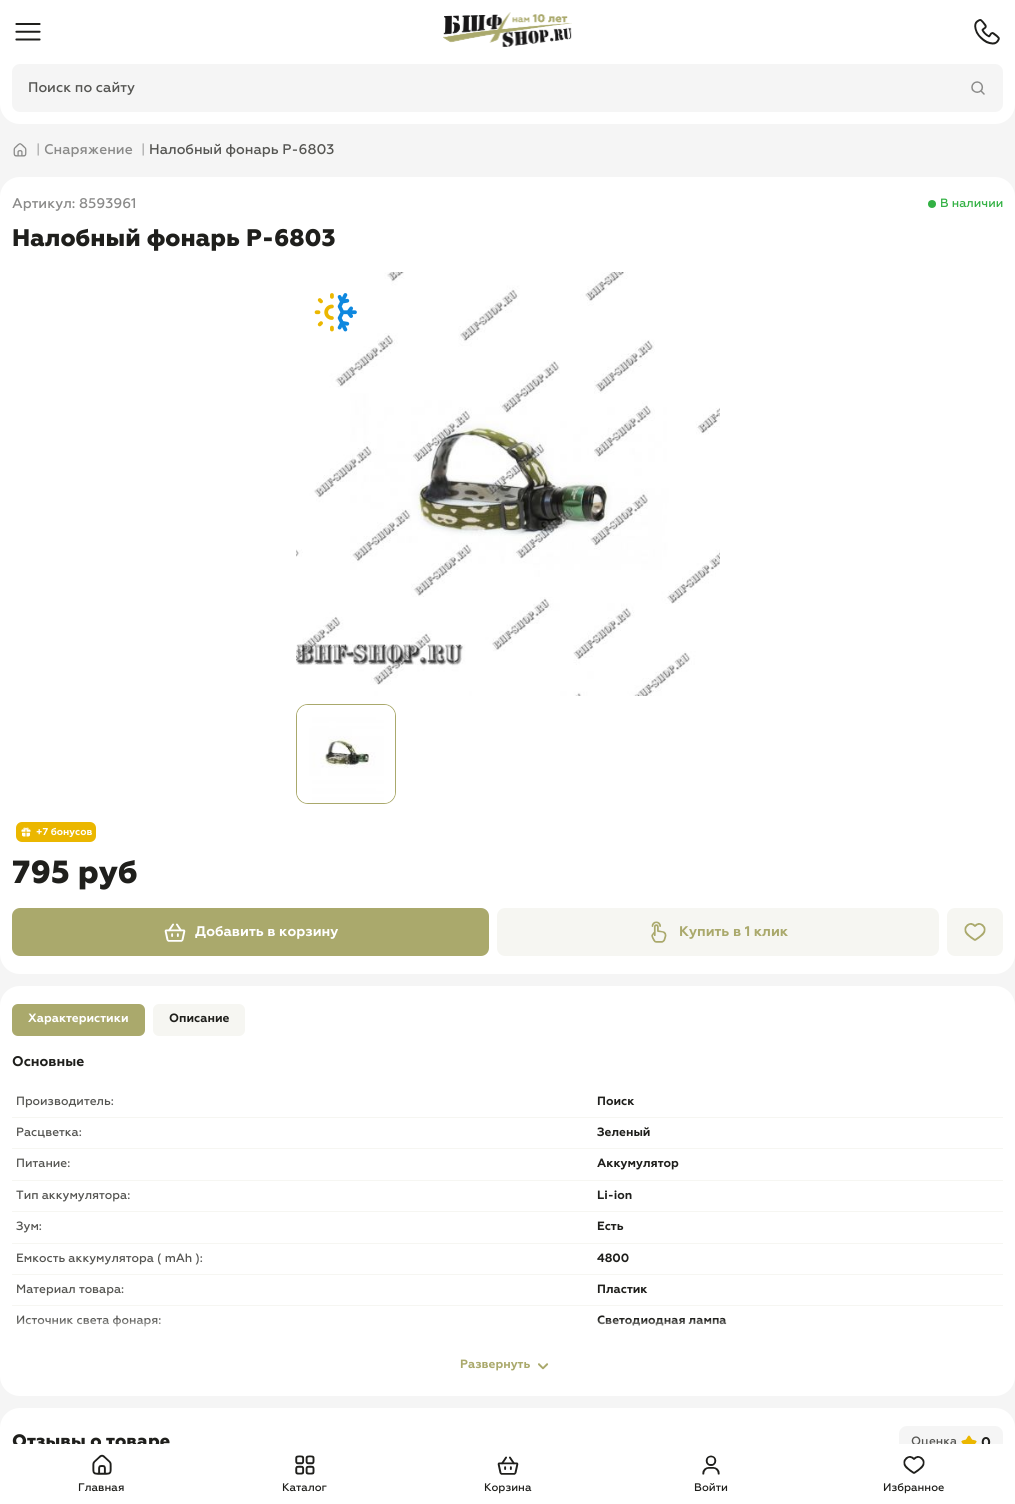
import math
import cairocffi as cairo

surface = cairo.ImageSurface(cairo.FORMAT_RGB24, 1015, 1504)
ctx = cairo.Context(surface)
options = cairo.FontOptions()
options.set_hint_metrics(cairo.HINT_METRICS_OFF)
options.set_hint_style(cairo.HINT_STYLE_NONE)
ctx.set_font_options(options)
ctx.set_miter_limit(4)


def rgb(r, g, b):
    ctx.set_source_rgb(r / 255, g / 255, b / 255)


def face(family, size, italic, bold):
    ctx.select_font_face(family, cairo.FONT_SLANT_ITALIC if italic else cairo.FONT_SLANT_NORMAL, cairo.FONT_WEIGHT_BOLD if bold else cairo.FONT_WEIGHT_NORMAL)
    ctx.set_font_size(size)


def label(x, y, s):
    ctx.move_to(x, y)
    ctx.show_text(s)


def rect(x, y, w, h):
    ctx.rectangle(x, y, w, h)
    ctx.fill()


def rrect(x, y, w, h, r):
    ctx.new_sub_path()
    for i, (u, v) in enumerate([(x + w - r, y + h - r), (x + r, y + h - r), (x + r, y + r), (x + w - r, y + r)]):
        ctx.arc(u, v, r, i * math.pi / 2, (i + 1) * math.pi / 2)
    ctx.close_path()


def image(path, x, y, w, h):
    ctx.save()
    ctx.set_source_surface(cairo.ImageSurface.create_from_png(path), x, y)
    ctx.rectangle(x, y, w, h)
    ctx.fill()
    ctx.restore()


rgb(245, 245, 245)
ctx.paint()
rgb(255, 255, 255)
ctx.new_path()
ctx.move_to(0, 0)
ctx.line_to(1015, 0)
ctx.line_to(1015, 104)
ctx.curve_to(1015, 115, 1006, 124, 995, 124)
ctx.line_to(20, 124)
ctx.curve_to(9, 124, 0, 115, 0, 104)
ctx.close_path()
ctx.fill()
image('image0.png', 15, 23, 26, 18)
image('image1.png', 443, 12, 129, 35)
image('image2.png', 974, 19, 26, 26)
rgb(245, 245, 245)
rrect(12, 64, 991, 48, 8)
ctx.fill()
face('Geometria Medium', 14, 0, 0)
rgb(85, 85, 82)
label(28, 92, 'Поиск по сайту')
image('image3.png', 971, 81, 14, 14)
image('image4.png', 13, 143, 14, 14)
face('Geometria', 14, 0, 0)
rgb(138, 138, 137)
label(36, 154, '|')
face('Geometria Medium', 14, 0, 0)
label(44, 154, 'Снаряжение')
face('Geometria', 14, 0, 0)
label(141, 154, '|')
face('Geometria Medium', 14, 0, 0)
rgb(85, 85, 82)
label(149, 154, 'Налобный фонарь P-6803')
rgb(255, 255, 255)
ctx.new_path()
ctx.move_to(20, 177)
ctx.line_to(995, 177)
ctx.curve_to(1006, 177, 1015, 186, 1015, 197)
ctx.line_to(1015, 272)
ctx.line_to(0, 272)
ctx.line_to(0, 197)
ctx.curve_to(0, 186, 9, 177, 20, 177)
ctx.close_path()
ctx.fill()
rgb(138, 138, 137)
label(12, 208, 'Артикул: 8593961')
rgb(51, 177, 68)
ctx.new_path()
ctx.arc(932, 204, 4, 0, 2 * math.pi)
ctx.fill()
face('Geometria Medium', 12, 0, 0)
label(940, 207, 'В наличии')
face('Geometria ExtraBold', 24, 0, 0)
rgb(31, 31, 28)
label(12, 246, 'Налобный фонарь P-6803')
rgb(255, 255, 255)
rect(0, 272, 1015, 532)
image('image5.png', 296, 272, 424, 424)
image('image6.png', 314, 293, 43, 39)
rrect(296.5, 704.5, 99, 99, 11.5)
rgb(170, 169, 108)
ctx.set_line_width(1)
ctx.stroke()
image('image7.png', 297, 705, 98, 98)
rgb(255, 255, 255)
ctx.new_path()
ctx.move_to(0, 804)
ctx.line_to(1015, 804)
ctx.line_to(1015, 954)
ctx.curve_to(1015, 965, 1006, 974, 995, 974)
ctx.line_to(20, 974)
ctx.curve_to(9, 974, 0, 965, 0, 954)
ctx.close_path()
ctx.fill()
rgb(235, 183, 0)
rrect(16, 822, 80, 20, 6)
ctx.fill()
image('image8.png', 21, 827, 10, 10)
face('Geometria', 10, 0, 1)
rgb(255, 255, 255)
label(36, 835, '+7 бонусов')
face('Geometria ExtraBold', 32, 0, 0)
rgb(31, 31, 28)
label(12, 883, '795 руб')
rgb(170, 169, 108)
rrect(12, 908, 477, 48, 8)
ctx.fill()
image('image9.png', 164, 923, 22, 19)
face('Geometria', 14, 0, 1)
rgb(255, 255, 255)
label(195, 936, 'Добавить в корзину')
rgb(246, 246, 242)
rrect(497, 908, 442, 48, 8)
ctx.fill()
image('image10.png', 651, 921, 16, 22)
rgb(170, 169, 108)
label(679, 936, 'Купить в 1 клик')
rgb(246, 246, 242)
rrect(947, 908, 56, 48, 8)
ctx.fill()
image('image11.png', 964, 923, 22, 18)
rgb(255, 255, 255)
rrect(0, 986, 1015, 410, 20)
ctx.fill()
rgb(170, 169, 108)
rrect(12, 1004, 133, 32, 6)
ctx.fill()
face('Geometria', 12, 0, 1)
rgb(255, 255, 255)
label(28, 1022, 'Характеристики')
rgb(246, 246, 242)
rrect(153, 1004, 92, 32, 6)
ctx.fill()
rgb(31, 31, 28)
label(169, 1022, 'Описание')
face('Geometria', 14, 0, 1)
label(12, 1066, 'Основные')
face('Geometria Medium', 12, 0, 0)
rgb(85, 85, 82)
label(16, 1105, 'Производитель:')
rgb(246, 246, 242)
rect(12, 1117, 991, 1)
face('Geometria', 12, 0, 1)
rgb(31, 31, 28)
label(597, 1105, 'Поиск')
face('Geometria Medium', 12, 0, 0)
rgb(85, 85, 82)
label(16, 1136, 'Расцветка:')
rgb(246, 246, 242)
rect(12, 1148, 991, 1)
face('Geometria', 12, 0, 1)
rgb(31, 31, 28)
label(597, 1136, 'Зеленый')
face('Geometria Medium', 12, 0, 0)
rgb(85, 85, 82)
label(16, 1167, 'Питание:')
rgb(246, 246, 242)
rect(12, 1180, 991, 1)
face('Geometria', 12, 0, 1)
rgb(31, 31, 28)
label(597, 1167, 'Аккумулятор')
face('Geometria Medium', 12, 0, 0)
rgb(85, 85, 82)
label(16, 1199, 'Тип аккумулятора:')
rgb(246, 246, 242)
rect(12, 1211, 991, 1)
face('Geometria', 12, 0, 1)
rgb(31, 31, 28)
label(597, 1199, 'Li-ion')
face('Geometria Medium', 12, 0, 0)
rgb(85, 85, 82)
label(16, 1230, 'Зум:')
rgb(246, 246, 242)
rect(12, 1243, 991, 1)
face('Geometria', 12, 0, 1)
rgb(31, 31, 28)
label(597, 1230, 'Есть')
face('Geometria Medium', 12, 0, 0)
rgb(85, 85, 82)
label(16, 1262, 'Емкость аккумулятора ( mAh ):')
rgb(246, 246, 242)
rect(12, 1274, 991, 1)
face('Geometria', 12, 0, 1)
rgb(31, 31, 28)
label(597, 1262, '4800')
face('Geometria Medium', 12, 0, 0)
rgb(85, 85, 82)
label(16, 1293, 'Материал товара:')
rgb(246, 246, 242)
rect(12, 1305, 991, 1)
face('Geometria', 12, 0, 1)
rgb(31, 31, 28)
label(597, 1293, 'Пластик')
face('Geometria Medium', 12, 0, 0)
rgb(85, 85, 82)
label(16, 1324, 'Источник света фонаря:')
face('Geometria', 12, 0, 1)
rgb(31, 31, 28)
label(597, 1324, 'Светодиодная лампа')
gradient = cairo.LinearGradient(508, 1304, 508, 1354)
gradient.add_color_stop_rgba(0.3, 1, 1, 1, 0)
gradient.add_color_stop_rgba(0.6, 1, 1, 1, 1)
ctx.set_source(gradient)
rect(17, 1319, 710, 8)
rgb(170, 169, 108)
label(460, 1368, 'Развернуть')
image('image12.png', 538, 1363, 11, 7)
rgb(255, 255, 255)
rrect(0, 1408, 1015, 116, 20)
ctx.fill()
face('Geometria ExtraBold', 18, 0, 0)
rgb(31, 31, 28)
label(12, 1447, 'Отзывы о товаре')
rgb(245, 245, 245)
rrect(899, 1426, 104, 34, 8)
ctx.fill()
face('Geometria Medium', 12, 0, 0)
rgb(85, 85, 82)
label(911, 1445, 'Оценка')
image('image13.png', 961, 1435, 16, 9)
face('Geometria', 14, 0, 1)
rgb(31, 31, 28)
label(981, 1447, '0')
rgb(255, 255, 255)
rect(13, 1444, 990, 16)
image('image14.png', 92, 1454, 20, 21)
face('Geometria Medium', 11, 0, 0)
rgb(31, 31, 28)
label(78, 1491, 'Главная')
image('image15.png', 295, 1455, 20, 20)
label(282, 1491, 'Каталог')
image('image16.png', 497, 1456, 22, 19)
label(484, 1491, 'Корзина')
image('image17.png', 702, 1455, 18, 20)
label(694, 1491, 'Войти')
image('image18.png', 903, 1456, 22, 18)
label(883, 1491, 'Избранное')
surface.write_to_png('render.png')
